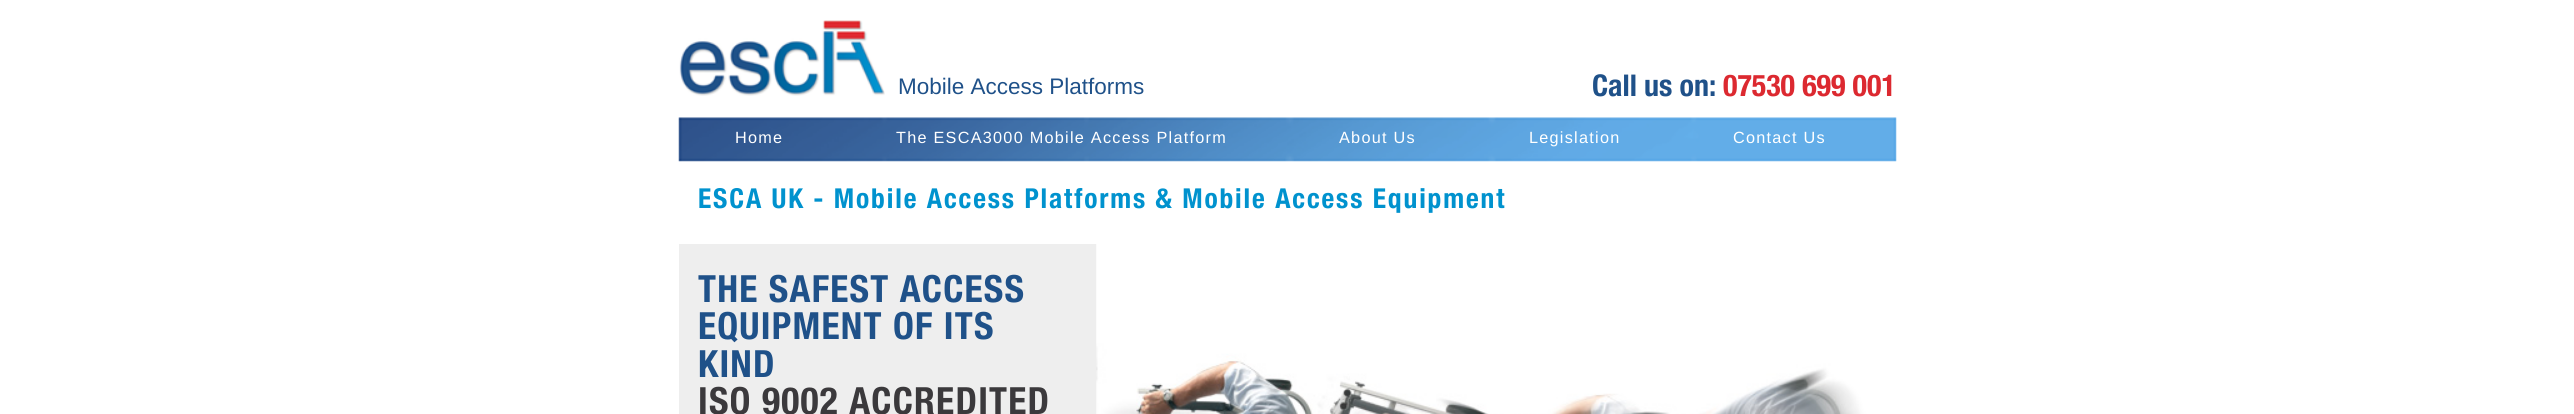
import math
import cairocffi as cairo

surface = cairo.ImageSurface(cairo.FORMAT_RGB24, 2574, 414)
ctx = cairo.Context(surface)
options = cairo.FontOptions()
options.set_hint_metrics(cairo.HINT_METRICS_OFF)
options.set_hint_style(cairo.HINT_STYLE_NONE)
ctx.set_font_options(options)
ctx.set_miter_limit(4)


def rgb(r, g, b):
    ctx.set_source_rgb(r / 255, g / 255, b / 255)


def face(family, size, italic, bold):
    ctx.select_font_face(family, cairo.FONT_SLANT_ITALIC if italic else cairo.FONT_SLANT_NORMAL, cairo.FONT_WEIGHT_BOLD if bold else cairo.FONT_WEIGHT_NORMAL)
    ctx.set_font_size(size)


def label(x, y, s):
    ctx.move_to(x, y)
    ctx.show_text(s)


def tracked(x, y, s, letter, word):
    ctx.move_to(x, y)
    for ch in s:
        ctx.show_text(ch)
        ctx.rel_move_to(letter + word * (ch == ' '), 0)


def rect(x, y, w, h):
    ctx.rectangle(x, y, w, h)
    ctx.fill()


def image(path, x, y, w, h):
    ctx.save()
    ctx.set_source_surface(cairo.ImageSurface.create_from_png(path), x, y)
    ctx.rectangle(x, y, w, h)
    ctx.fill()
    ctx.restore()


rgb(255, 255, 255)
ctx.paint()
image('image0.png', 679, 20, 206, 76)
face('Liberation Sans', 22.5, 0, 0)
rgb(31, 81, 137)
label(898, 94, 'Mobile Access Platforms')
face('Helvetica Neue', 30, 0, 1)
label(1592, 96, 'Call us on:')
rgb(220, 41, 48)
label(1723, 96, '07530 699 001')
image('image1.png', 678, 117, 1219, 45)
face('Liberation Sans', 16.25, 0, 0)
rgb(255, 255, 255)
tracked(735, 143, 'Home', 1.25, 0)
tracked(896, 143, 'The ESCA3000 Mobile Access Platform', 1.25, 0)
tracked(1339, 143, 'About Us', 1.25, 0)
tracked(1529, 143, 'Legislation', 1.25, 0)
tracked(1733, 143, 'Contact Us', 1.25, 0)
face('Helvetica Neue', 27.5, 0, 1)
rgb(0, 146, 206)
tracked(698, 208, 'ESCA UK - Mobile Access Platforms & Mobile Access Equipment', 1.88, 0)
rgb(238, 238, 238)
rect(679, 244, 418, 170)
face('Helvetica Neue', 37.5, 0, 1)
rgb(31, 81, 137)
tracked(698, 302, 'THE SAFEST ACCESS', 1.25, 0)
tracked(698, 339, 'EQUIPMENT OF ITS', 1.25, 0)
tracked(698, 377, 'KIND', 1.25, 0)
rgb(59, 57, 60)
tracked(698, 414, 'ISO 9002 ACCREDITED', 1.25, 0)
image('image2.png', 1096, 244, 800, 170)
surface.write_to_png('render.png')
